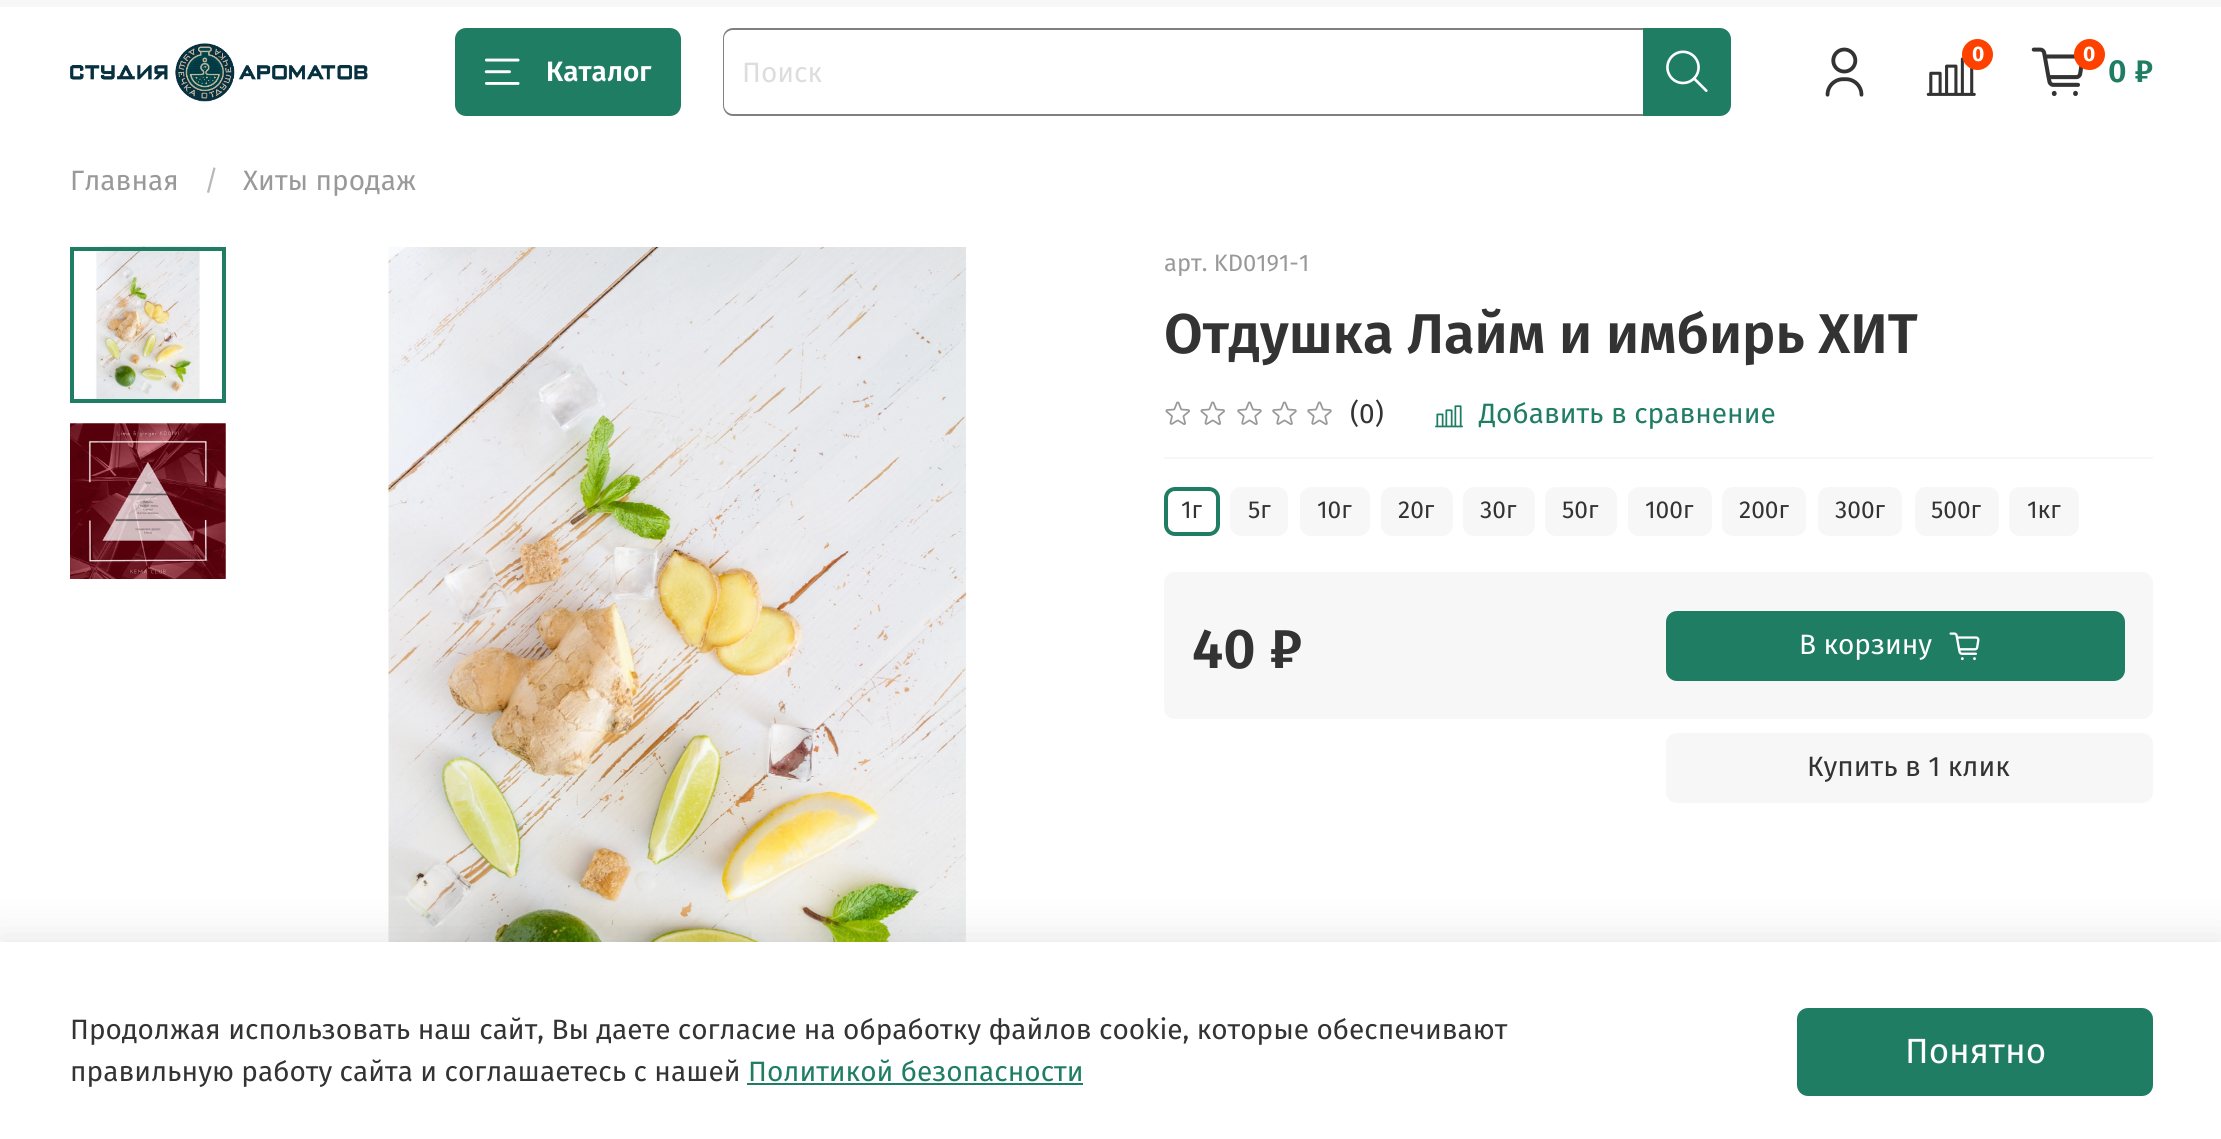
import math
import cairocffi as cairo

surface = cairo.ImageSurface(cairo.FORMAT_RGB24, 2221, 1139)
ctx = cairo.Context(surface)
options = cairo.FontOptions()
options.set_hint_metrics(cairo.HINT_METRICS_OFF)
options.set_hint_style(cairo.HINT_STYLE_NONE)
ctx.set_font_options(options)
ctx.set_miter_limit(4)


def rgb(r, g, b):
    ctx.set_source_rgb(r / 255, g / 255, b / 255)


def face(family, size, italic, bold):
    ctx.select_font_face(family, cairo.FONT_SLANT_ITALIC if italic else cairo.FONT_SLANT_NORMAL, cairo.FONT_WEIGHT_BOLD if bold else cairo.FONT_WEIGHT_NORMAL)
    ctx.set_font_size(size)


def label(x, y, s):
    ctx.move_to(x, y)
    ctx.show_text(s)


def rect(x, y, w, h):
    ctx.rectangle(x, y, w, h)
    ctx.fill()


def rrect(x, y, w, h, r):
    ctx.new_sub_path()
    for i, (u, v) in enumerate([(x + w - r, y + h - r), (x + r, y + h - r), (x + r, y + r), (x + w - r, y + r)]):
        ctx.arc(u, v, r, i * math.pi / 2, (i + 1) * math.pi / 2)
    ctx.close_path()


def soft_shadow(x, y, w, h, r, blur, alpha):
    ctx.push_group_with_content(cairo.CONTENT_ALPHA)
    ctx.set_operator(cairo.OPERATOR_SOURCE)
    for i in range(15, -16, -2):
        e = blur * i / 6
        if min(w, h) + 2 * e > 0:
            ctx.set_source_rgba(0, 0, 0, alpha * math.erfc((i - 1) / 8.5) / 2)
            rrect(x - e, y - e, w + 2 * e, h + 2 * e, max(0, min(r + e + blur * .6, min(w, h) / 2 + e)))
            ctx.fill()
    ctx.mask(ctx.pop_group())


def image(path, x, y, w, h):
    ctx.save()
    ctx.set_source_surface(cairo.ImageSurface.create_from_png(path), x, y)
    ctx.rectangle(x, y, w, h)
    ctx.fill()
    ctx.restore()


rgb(255, 255, 255)
ctx.paint()
rgb(247, 247, 247)
rect(0, 0, 2221, 7)
image('image0.png', 70, 43, 298, 59)
rgb(31, 125, 99)
rrect(455, 28, 226, 88, 11)
ctx.fill()
image('image1.png', 484, 58, 36, 27)
face('Fira Sans SemiBold', 28, 0, 0)
rgb(255, 255, 255)
label(546, 81, 'Каталог')
rgb(128, 128, 128)
ctx.set_fill_rule(cairo.FILL_RULE_EVEN_ODD)
ctx.new_path()
ctx.move_to(733, 28)
ctx.line_to(1643, 28)
ctx.line_to(1643, 116)
ctx.line_to(733, 116)
ctx.curve_to(727, 116, 723, 111, 723, 105)
ctx.line_to(723, 38)
ctx.curve_to(723, 33, 727, 28, 733, 28)
ctx.close_path()
ctx.move_to(733, 30)
ctx.line_to(1643, 30)
ctx.line_to(1643, 114)
ctx.line_to(733, 114)
ctx.curve_to(728, 114, 724, 110, 724, 105)
ctx.line_to(724, 38)
ctx.curve_to(724, 34, 728, 30, 733, 30)
ctx.close_path()
ctx.fill()
face('Fira Sans', 28, 0, 0)
rgb(221, 221, 221)
label(742, 82, 'Поиск')
rgb(31, 125, 99)
ctx.new_path()
ctx.move_to(1643, 28)
ctx.line_to(1720, 28)
ctx.curve_to(1726, 28, 1731, 33, 1731, 39)
ctx.line_to(1731, 105)
ctx.curve_to(1731, 111, 1726, 116, 1720, 116)
ctx.line_to(1643, 116)
ctx.close_path()
ctx.fill()
image('image2.png', 1666, 50, 42, 42)
image('image3.png', 1825, 47, 39, 50)
image('image4.png', 1926, 57, 50, 39)
rgb(255, 65, 0)
ctx.arc(1977.5, 54.5, 15.5, 0, 2 * math.pi)
ctx.fill()
face('Fira Sans', 21, 0, 1)
rgb(255, 255, 255)
label(1972, 61, '0')
image('image5.png', 2031, 47, 53, 49)
rgb(255, 65, 0)
ctx.arc(2089.5, 54.5, 15.5, 0, 2 * math.pi)
ctx.fill()
rgb(255, 255, 255)
label(2083, 61, '0')
face('Fira Sans SemiBold', 32, 0, 0)
rgb(31, 125, 99)
label(2108, 82, '0 ₽')
face('Fira Sans', 28, 0, 0)
rgb(153, 153, 153)
label(70, 190, 'Главная')
rgb(184, 184, 184)
label(204, 190, '/')
rgb(153, 153, 153)
label(243, 190, 'Хиты продаж')
image('image6.png', 95, 246, 105, 153)
ctx.rectangle(72, 249, 152, 152)
rgb(31, 125, 99)
ctx.set_line_width(4)
ctx.stroke()
image('image7.png', 70, 423, 156, 156)
image('image8.png', 388, 247, 579, 695)
face('Fira Sans', 23.75, 0, 0)
rgb(153, 153, 153)
label(1164, 271, 'арт. KD0191-1')
face('Fira Sans SemiBold', 56, 0, 0)
rgb(51, 51, 51)
label(1164, 353, 'Отдушка Лайм и имбирь ХИТ')
rgb(247, 247, 247)
rect(1164, 457, 989, 2)
image('image9.png', 1165, 401, 25, 24)
image('image9.png', 1200, 401, 25, 24)
image('image10.png', 1237, 401, 25, 24)
image('image10.png', 1272, 401, 25, 24)
image('image10.png', 1307, 401, 25, 24)
face('Fira Sans', 28, 0, 0)
rgb(51, 51, 51)
label(1350, 423, '(0)')
image('image11.png', 1435, 405, 28, 23)
rgb(31, 125, 99)
label(1479, 423, 'Добавить в сравнение')
rrect(1166, 489, 52, 45, 9)
ctx.stroke()
face('Fira Sans', 24.5, 0, 0)
rgb(51, 51, 51)
label(1181, 518, '1г')
rgb(247, 247, 247)
rrect(1230, 487, 58, 49, 11)
ctx.fill()
rgb(51, 51, 51)
label(1248, 518, '5г')
rgb(247, 247, 247)
rrect(1300, 487, 70, 49, 11)
ctx.fill()
rgb(51, 51, 51)
label(1317, 518, '10г')
rgb(247, 247, 247)
rrect(1381, 487, 72, 49, 11)
ctx.fill()
rgb(51, 51, 51)
label(1398, 518, '20г')
rgb(247, 247, 247)
rrect(1463, 487, 72, 49, 11)
ctx.fill()
rgb(51, 51, 51)
label(1480, 518, '30г')
rgb(247, 247, 247)
rrect(1545, 487, 72, 49, 11)
ctx.fill()
rgb(51, 51, 51)
label(1562, 518, '50г')
rgb(247, 247, 247)
rrect(1628, 487, 84, 49, 11)
ctx.fill()
rgb(51, 51, 51)
label(1645, 518, '100г')
rgb(247, 247, 247)
rrect(1722, 487, 84, 49, 11)
ctx.fill()
rgb(51, 51, 51)
label(1739, 518, '200г')
rgb(247, 247, 247)
rrect(1818, 487, 84, 49, 11)
ctx.fill()
rgb(51, 51, 51)
label(1835, 518, '300г')
rgb(247, 247, 247)
rrect(1915, 487, 84, 49, 11)
ctx.fill()
rgb(51, 51, 51)
label(1931, 518, '500г')
rgb(247, 247, 247)
rrect(2009, 487, 70, 49, 11)
ctx.fill()
rgb(51, 51, 51)
label(2027, 518, '1кг')
rgb(247, 247, 247)
rrect(1164, 572, 989, 147, 11)
ctx.fill()
face('Fira Sans SemiBold', 56, 0, 0)
rgb(51, 51, 51)
label(1192, 668, '40 ₽')
rgb(31, 125, 99)
rrect(1666, 611, 459, 70, 11)
ctx.fill()
face('Fira Sans', 28, 0, 0)
rgb(255, 255, 255)
label(1799, 654, 'В корзину')
image('image12.png', 1949, 632, 31, 29)
rgb(247, 247, 247)
rrect(1666, 733, 487, 70, 11)
ctx.fill()
rgb(51, 51, 51)
label(1807, 776, 'Купить в 1 клик')
rgb(0, 0, 0)
soft_shadow(-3, 936, 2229, 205, 0, 20, 0.09)
rgb(255, 255, 255)
rect(0, 942, 2221, 197)
rgb(51, 51, 51)
label(70, 1039, 'Продолжая использовать наш сайт, Вы даете согласие на обработку файлов cookie, которые обеспечивают')
label(70, 1081, 'правильную работу сайта и соглашаетесь с нашей')
rgb(31, 125, 99)
label(748, 1081, 'Политикой безопасности')
rect(747, 1083, 336, 2)
rrect(1797, 1008, 356, 88, 11)
ctx.fill()
face('Fira Sans', 35, 0, 0)
rgb(255, 255, 255)
label(1905, 1063, 'Понятно')
surface.write_to_png('render.png')
